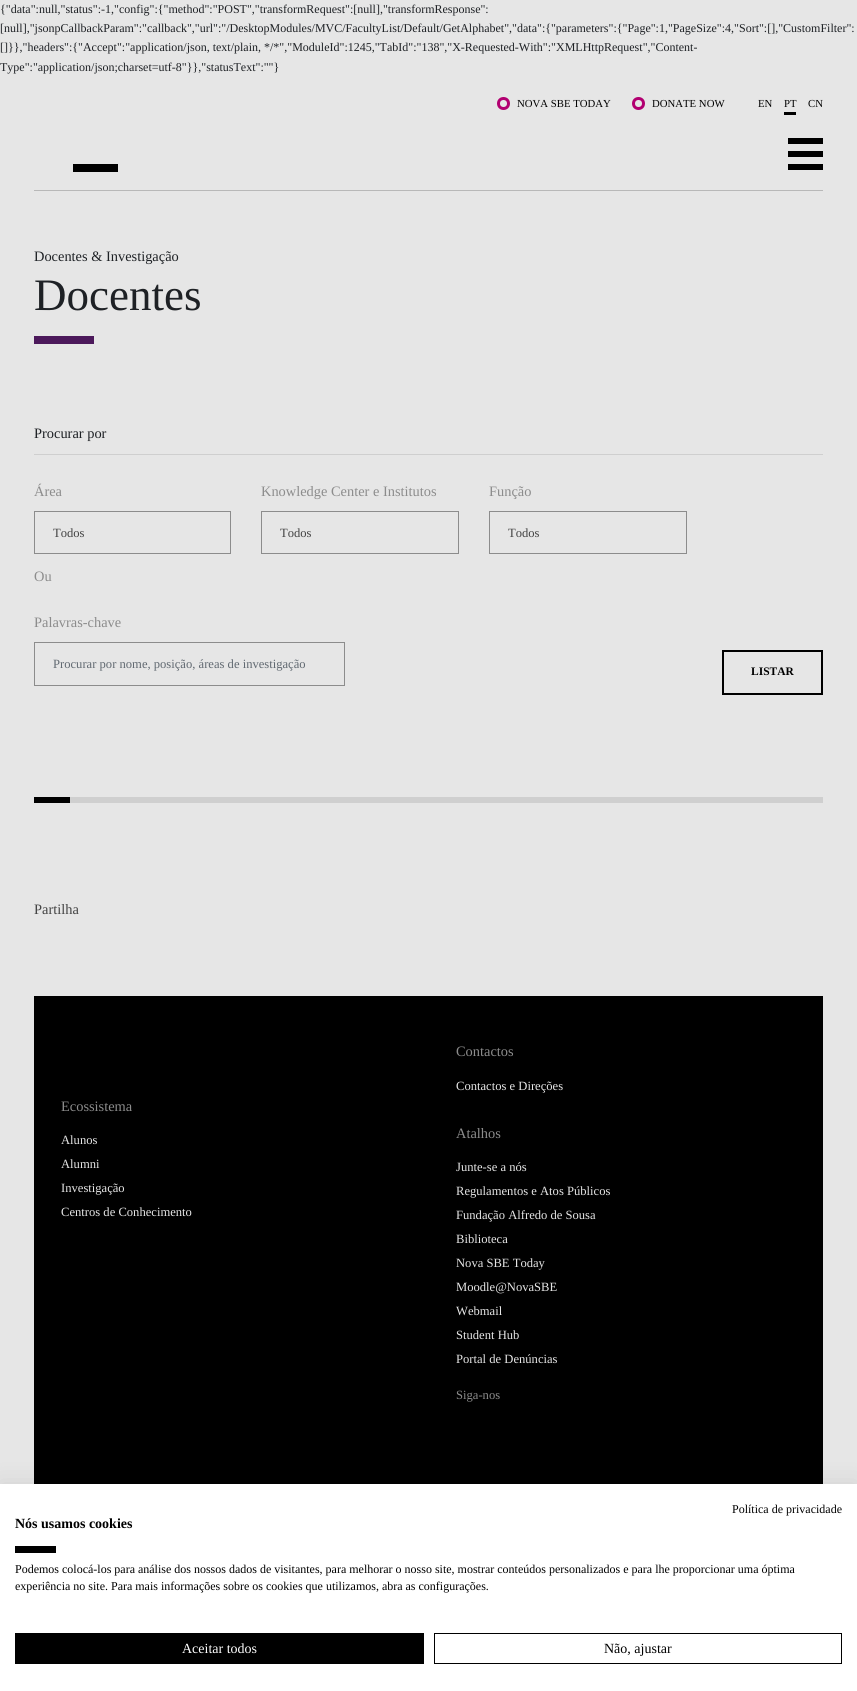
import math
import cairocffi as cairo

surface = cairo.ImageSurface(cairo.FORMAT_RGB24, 857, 1691)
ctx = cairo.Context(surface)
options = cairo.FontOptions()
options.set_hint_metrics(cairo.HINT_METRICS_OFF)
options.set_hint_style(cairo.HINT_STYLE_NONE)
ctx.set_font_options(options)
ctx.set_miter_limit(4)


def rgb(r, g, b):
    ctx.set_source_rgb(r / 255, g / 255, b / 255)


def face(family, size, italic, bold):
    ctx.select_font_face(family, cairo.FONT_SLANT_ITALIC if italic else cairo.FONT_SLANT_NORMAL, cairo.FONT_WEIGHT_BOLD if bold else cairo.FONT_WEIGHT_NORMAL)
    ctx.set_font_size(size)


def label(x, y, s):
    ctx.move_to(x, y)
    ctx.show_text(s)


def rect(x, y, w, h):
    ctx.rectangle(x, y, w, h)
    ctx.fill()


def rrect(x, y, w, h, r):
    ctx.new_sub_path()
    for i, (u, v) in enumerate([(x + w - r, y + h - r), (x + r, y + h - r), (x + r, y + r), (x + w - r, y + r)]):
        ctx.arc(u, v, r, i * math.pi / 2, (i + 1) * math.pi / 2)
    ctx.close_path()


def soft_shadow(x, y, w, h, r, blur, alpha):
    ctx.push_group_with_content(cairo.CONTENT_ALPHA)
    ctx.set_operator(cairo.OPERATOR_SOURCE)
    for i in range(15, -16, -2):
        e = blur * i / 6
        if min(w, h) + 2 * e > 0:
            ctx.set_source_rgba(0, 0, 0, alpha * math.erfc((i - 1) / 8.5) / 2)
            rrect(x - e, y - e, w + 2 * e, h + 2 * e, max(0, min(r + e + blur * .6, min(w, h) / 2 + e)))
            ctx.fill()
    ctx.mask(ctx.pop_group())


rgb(230, 230, 230)
ctx.paint()
face('Liberation Serif', 12, 0, 0)
rgb(30, 33, 37)
label(0, 13, '{"data":null,"status":-1,"config":{"method":"POST","transformRequest":[null],"transformResponse":')
label(0, 32, '[null],"jsonpCallbackParam":"callback","url":"/DesktopModules/MVC/FacultyList/Default/GetAlphabet","data":{"parameters":{"Page":1,"PageSize":4,"Sort":[],"CustomFilter":')
label(0, 51, '[]}},"headers":{"Accept":"application/json, text/plain, */*","ModuleId":1245,"TabId":"138","X-Requested-With":"XMLHttpRequest","Content-')
label(0, 71, 'Type":"application/json;charset=utf-8"}},"statusText":""}')
ctx.new_path()
ctx.arc(503.5, 103.5, 5, 0, 2 * math.pi)
rgb(178, 0, 113)
ctx.set_line_width(3)
ctx.stroke()
face('Liberation Serif', 10.75, 0, 0)
rgb(0, 0, 0)
label(517, 107, 'NOVA SBE TODAY')
ctx.new_path()
ctx.arc(638.5, 103.5, 5, 0, 2 * math.pi)
rgb(178, 0, 113)
ctx.stroke()
rgb(0, 0, 0)
label(652, 107, 'DONATE NOW')
label(758, 107, 'EN')
label(784, 107, 'PT')
rect(784, 112, 12, 3)
label(808, 107, 'CN')
rect(73, 164, 45, 8)
rect(788, 138, 35, 6)
rect(788, 151, 35, 6)
rect(788, 164, 35, 6)
rgb(184, 184, 184)
rect(34, 190, 789, 1)
face('Liberation Serif', 14.4, 0, 0)
rgb(30, 33, 37)
label(34, 261, 'Docentes & Investigação')
face('Liberation Serif', 45, 0, 0)
label(34, 310, 'Docentes')
rgb(76, 25, 91)
rect(34, 336, 60, 8)
face('Liberation Serif', 14.4, 0, 0)
rgb(30, 33, 37)
label(34, 438, 'Procurar por')
rgb(207, 207, 207)
rect(34, 454, 789, 1)
rgb(140, 140, 140)
label(34, 496, 'Área')
ctx.rectangle(34.5, 511.5, 196, 42)
ctx.set_line_width(1)
ctx.stroke()
face('Liberation Serif', 12.6, 0, 0)
rgb(67, 67, 67)
label(53, 537, 'Todos')
face('Liberation Serif', 14.4, 0, 0)
rgb(140, 140, 140)
label(261, 496, 'Knowledge Center e Institutos')
ctx.rectangle(261.5, 511.5, 197, 42)
ctx.stroke()
face('Liberation Serif', 12.6, 0, 0)
rgb(67, 67, 67)
label(280, 537, 'Todos')
face('Liberation Serif', 14.4, 0, 0)
rgb(140, 140, 140)
label(489, 496, 'Função')
ctx.rectangle(489.5, 511.5, 197, 42)
ctx.stroke()
face('Liberation Serif', 12.6, 0, 0)
rgb(67, 67, 67)
label(508, 537, 'Todos')
face('Liberation Serif', 14.4, 0, 0)
rgb(140, 140, 140)
label(34, 581, 'Ou')
label(34, 627, 'Palavras-chave')
ctx.rectangle(34.5, 642.5, 310, 43)
ctx.stroke()
face('Liberation Serif', 12.6, 0, 0)
rgb(97, 105, 113)
label(53, 668, 'Procurar por nome, posição, áreas de investigação')
ctx.rectangle(723, 651, 99, 43)
rgb(0, 0, 0)
ctx.set_line_width(2)
ctx.stroke()
face('Liberation Serif', 11.5, 0, 1)
label(751, 675, 'LISTAR')
rect(34, 797, 36, 6)
rgb(207, 207, 207)
rect(70, 797, 753, 6)
face('Liberation Serif', 14.4, 0, 0)
rgb(67, 67, 67)
label(34, 914, 'Partilha')
rgb(0, 0, 0)
rect(34, 996, 789, 488)
rgb(140, 140, 140)
label(456, 1056, 'Contactos')
face('Liberation Serif', 12.6, 0, 0)
rgb(230, 230, 230)
label(456, 1090, 'Contactos e Direções')
face('Liberation Serif', 14.4, 0, 0)
rgb(140, 140, 140)
label(61, 1111, 'Ecossistema')
face('Liberation Serif', 12.6, 0, 0)
rgb(230, 230, 230)
label(61, 1144, 'Alunos')
label(61, 1168, 'Alumni')
label(61, 1192, 'Investigação')
label(61, 1216, 'Centros de Conhecimento')
face('Liberation Serif', 14.4, 0, 0)
rgb(140, 140, 140)
label(456, 1138, 'Atalhos')
face('Liberation Serif', 12.6, 0, 0)
rgb(230, 230, 230)
label(456, 1171, 'Junte-se a nós')
label(456, 1195, 'Regulamentos e Atos Públicos')
label(456, 1219, 'Fundação Alfredo de Sousa')
label(456, 1243, 'Biblioteca')
label(456, 1267, 'Nova SBE Today')
label(456, 1291, 'Moodle@NovaSBE')
label(456, 1315, 'Webmail')
label(456, 1339, 'Student Hub')
label(456, 1363, 'Portal de Denúncias')
rgb(140, 140, 140)
label(456, 1399, 'Siga-nos')
rgb(0, 0, 0)
soft_shadow(0, 1484, 857, 207, 0, 12, 0.1)
rgb(255, 255, 255)
rect(0, 1484, 857, 207)
face('Liberation Serif', 12, 0, 0)
rgb(0, 0, 0)
label(732, 1513, 'Política de privacidade')
face('Liberation Serif', 14, 0, 1)
label(15, 1528, 'Nós usamos cookies')
rect(15, 1546, 41, 7)
face('Liberation Serif', 12, 0, 0)
label(15, 1573, 'Podemos colocá-los para análise dos nossos dados de visitantes, para melhorar o nosso site, mostrar conteúdos personalizados e para lhe proporcionar uma óptima')
label(15, 1590, 'experiência no site. Para mais informações sobre os cookies que utilizamos, abra as configurações.')
rect(15, 1633, 409, 31)
face('Liberation Serif', 14, 0, 0)
rgb(255, 255, 255)
label(182, 1653, 'Aceitar todos')
ctx.rectangle(434.5, 1633.5, 407, 30)
rgb(0, 0, 0)
ctx.set_line_width(1)
ctx.stroke()
label(604, 1653, 'Não, ajustar')
surface.write_to_png('render.png')
